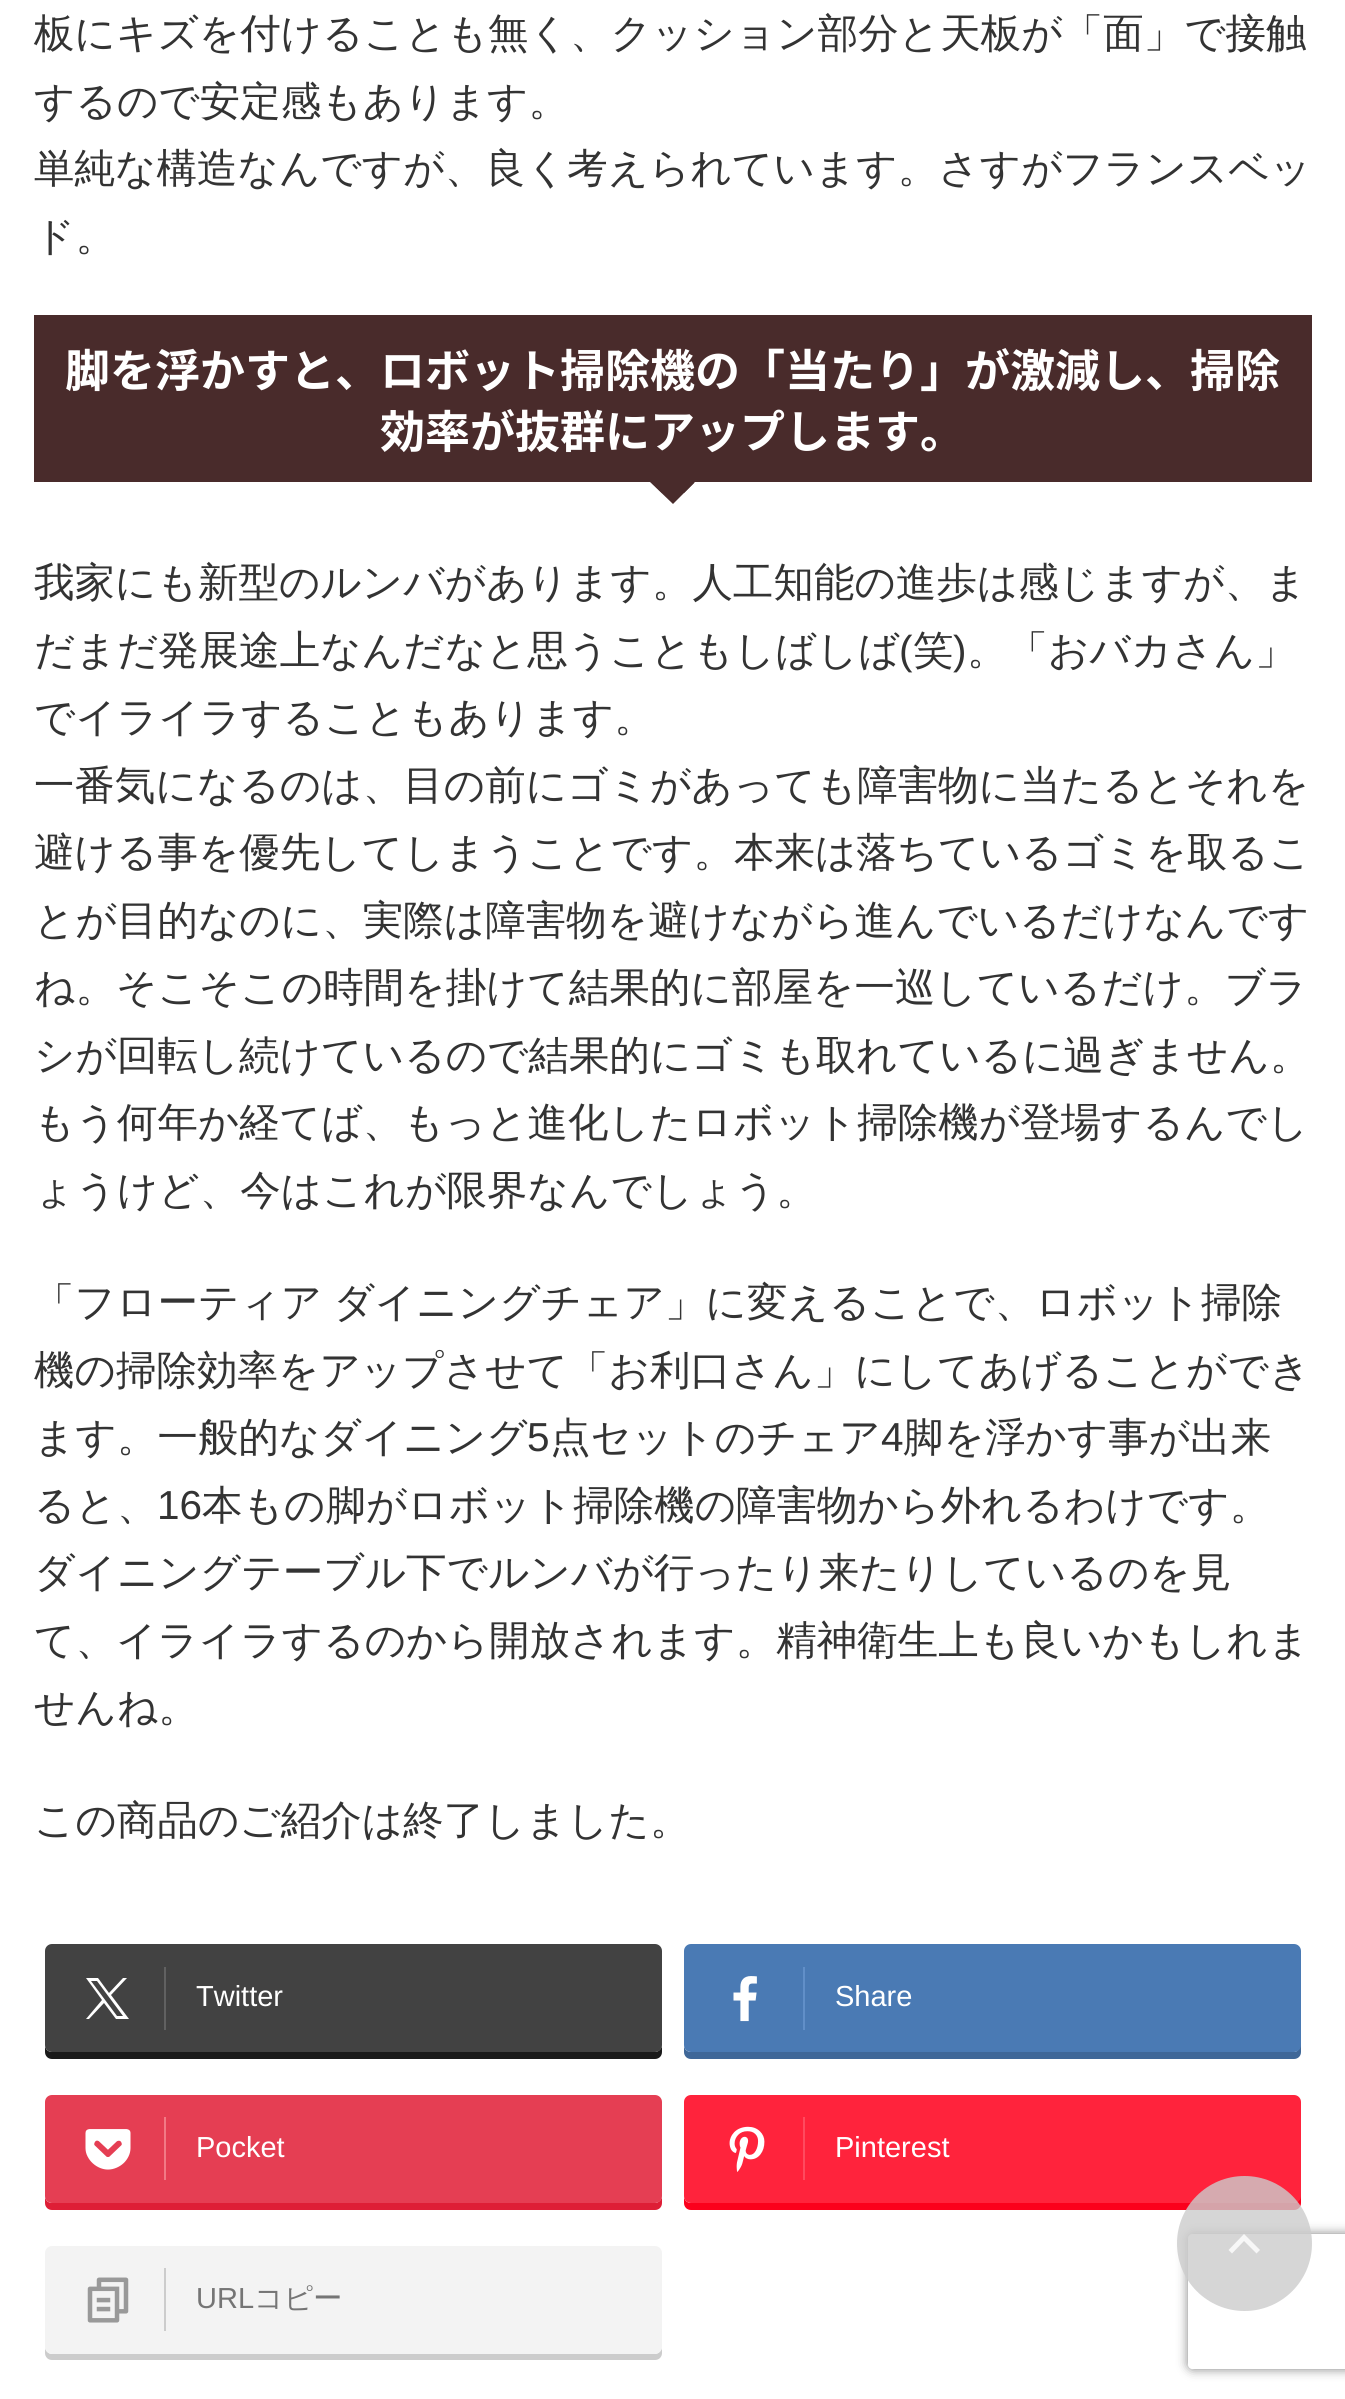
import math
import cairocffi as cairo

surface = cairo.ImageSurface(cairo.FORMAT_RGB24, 1345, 2399)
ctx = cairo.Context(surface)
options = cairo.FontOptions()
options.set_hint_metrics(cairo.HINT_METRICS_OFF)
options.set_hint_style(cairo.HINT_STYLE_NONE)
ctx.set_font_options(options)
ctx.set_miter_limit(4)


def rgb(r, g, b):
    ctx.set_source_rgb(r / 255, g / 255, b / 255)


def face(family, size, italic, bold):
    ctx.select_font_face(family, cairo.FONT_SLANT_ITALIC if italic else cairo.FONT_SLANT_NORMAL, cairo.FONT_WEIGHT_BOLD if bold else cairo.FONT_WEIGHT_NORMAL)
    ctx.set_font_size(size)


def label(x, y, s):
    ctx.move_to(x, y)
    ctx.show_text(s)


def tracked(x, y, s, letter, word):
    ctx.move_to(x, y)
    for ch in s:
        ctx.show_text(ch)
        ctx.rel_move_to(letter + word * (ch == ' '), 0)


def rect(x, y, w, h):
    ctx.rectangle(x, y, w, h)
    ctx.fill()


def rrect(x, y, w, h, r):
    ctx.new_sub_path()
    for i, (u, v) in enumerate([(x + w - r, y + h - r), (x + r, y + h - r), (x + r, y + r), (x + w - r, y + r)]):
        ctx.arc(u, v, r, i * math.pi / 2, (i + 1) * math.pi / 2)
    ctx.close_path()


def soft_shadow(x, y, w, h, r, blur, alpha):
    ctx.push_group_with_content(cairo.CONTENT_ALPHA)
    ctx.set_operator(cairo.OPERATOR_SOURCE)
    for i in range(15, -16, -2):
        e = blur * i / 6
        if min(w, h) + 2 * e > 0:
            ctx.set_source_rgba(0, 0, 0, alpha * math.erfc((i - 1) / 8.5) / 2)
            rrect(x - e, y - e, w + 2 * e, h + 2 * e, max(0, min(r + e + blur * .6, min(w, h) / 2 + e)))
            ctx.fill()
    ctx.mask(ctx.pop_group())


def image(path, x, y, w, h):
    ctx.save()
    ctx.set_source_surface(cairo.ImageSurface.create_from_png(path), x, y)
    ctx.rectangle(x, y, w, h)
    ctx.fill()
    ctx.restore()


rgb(255, 255, 255)
ctx.paint()
face('WenQuanYi Zen Hei Medium', 40.5, 0, 0)
rgb(51, 51, 51)
label(34, 47, '板にキズを付けることも無く、クッション部分と天板が「面」で接触')
label(34, 115, 'するので安定感もあります。')
label(34, 182, '単純な構造なんですが、良く考えられています。さすがフランスベッ')
label(34, 250, 'ド。')
rgb(73, 43, 43)
rect(34, 315, 1278, 167)
face('Noto Sans JP', 45, 0, 1)
rgb(255, 255, 255)
label(65, 387, '脚を浮かすと、ロボット掃除機の「当たり」が激減し、掃除')
label(380, 448, '効率が抜群にアップします。')
rgb(73, 43, 43)
ctx.new_path()
ctx.move_to(650, 482)
ctx.line_to(695, 482)
ctx.line_to(673, 504)
ctx.close_path()
ctx.fill()
ctx.new_path()
ctx.move_to(655, 482)
ctx.line_to(691, 482)
ctx.curve_to(692, 482, 693, 482, 694, 483)
ctx.line_to(684, 493)
ctx.line_to(662, 493)
ctx.line_to(652, 483)
ctx.close_path()
ctx.fill()
face('WenQuanYi Zen Hei Medium', 40.5, 0, 0)
rgb(51, 51, 51)
label(34, 596, '我家にも新型のルンバがあります。人工知能の進歩は感じますが、ま')
label(34, 664, 'だまだ発展途上なんだなと思うこともしばしば')
face('Liberation Sans', 40.5, 0, 0)
label(899, 664, '(')
face('WenQuanYi Zen Hei Medium', 40.5, 0, 0)
label(913, 664, '笑')
face('Liberation Sans', 40.5, 0, 0)
label(953, 664, ')')
face('WenQuanYi Zen Hei Medium', 40.5, 0, 0)
label(967, 664, '。「おバカさん」')
label(34, 731, 'でイライラすることもあります。')
label(34, 799, '一番気になるのは、目の前にゴミがあっても障害物に当たるとそれを')
label(34, 866, '避ける事を優先してしまうことです。本来は落ちているゴミを取るこ')
label(34, 934, 'とが目的なのに、実際は障害物を避けながら進んでいるだけなんです')
label(34, 1001, 'ね。そこそこの時間を掛けて結果的に部屋を一巡しているだけ。ブラ')
label(34, 1069, 'シが回転し続けているので結果的にゴミも取れているに過ぎません。')
label(34, 1136, 'もう何年か経てば、もっと進化したロボット掃除機が登場するんでし')
label(34, 1204, 'ょうけど、今はこれが限界なんでしょう。')
tracked(34, 1316, '「フローティア ダイニングチェア」に変えることで、ロボット掃除', 0, -1)
label(34, 1384, '機の掃除効率をアップさせて「お利口さん」にしてあげることができ')
label(34, 1451, 'ます。一般的なダイニング')
face('Liberation Sans', 40.5, 0, 0)
label(527, 1451, '5')
face('WenQuanYi Zen Hei Medium', 40.5, 0, 0)
label(550, 1451, '点セットのチェア')
face('Liberation Sans', 40.5, 0, 0)
label(881, 1451, '4')
face('WenQuanYi Zen Hei Medium', 40.5, 0, 0)
label(903, 1451, '脚を浮かす事が出来')
label(34, 1519, 'ると、')
face('Liberation Sans', 40.5, 0, 0)
label(157, 1519, '16')
face('WenQuanYi Zen Hei Medium', 40.5, 0, 0)
label(202, 1519, '本もの脚がロボット掃除機の障害物から外れるわけです。')
label(34, 1586, 'ダイニングテーブル下でルンバが行ったり来たりしているのを見')
label(34, 1654, 'て、イライラするのから開放されます。精神衛生上も良いかもしれま')
label(34, 1721, 'せんね。')
label(34, 1834, 'この商品のご紹介は終了しました。')
rgb(26, 26, 26)
ctx.new_path()
ctx.move_to(45, 2045)
ctx.line_to(45, 2052)
ctx.curve_to(45, 2056, 48, 2059, 52, 2059)
ctx.line_to(655, 2059)
ctx.curve_to(659, 2059, 662, 2056, 662, 2052)
ctx.line_to(662, 1958)
ctx.line_to(662, 1955)
ctx.line_to(662, 2045)
ctx.curve_to(662, 2049, 658, 2052, 655, 2052)
ctx.line_to(52, 2052)
ctx.curve_to(48, 2052, 45, 2049, 45, 2045)
ctx.close_path()
ctx.fill()
rgb(66, 66, 66)
rrect(45, 1944, 617, 108, 7)
ctx.fill()
rgb(97, 97, 97)
rect(164, 1967, 2, 63)
rgb(255, 255, 255)
ctx.new_path()
ctx.move_to(86, 1978)
ctx.line_to(102, 2000)
ctx.line_to(86, 2019)
ctx.line_to(89, 2019)
ctx.line_to(104, 2003)
ctx.line_to(116, 2019)
ctx.line_to(129, 2019)
ctx.line_to(111, 1995)
ctx.line_to(127, 1978)
ctx.line_to(123, 1978)
ctx.line_to(109, 1993)
ctx.line_to(98, 1978)
ctx.close_path()
ctx.move_to(91, 1981)
ctx.line_to(97, 1981)
ctx.line_to(123, 2016)
ctx.line_to(117, 2016)
ctx.close_path()
ctx.fill()
face('Liberation Sans', 29, 0, 0)
label(196, 2006, 'Twitter')
rgb(63, 103, 152)
ctx.new_path()
ctx.move_to(684, 2045)
ctx.line_to(684, 2052)
ctx.curve_to(684, 2056, 687, 2059, 691, 2059)
ctx.line_to(1294, 2059)
ctx.curve_to(1298, 2059, 1301, 2056, 1301, 2052)
ctx.line_to(1301, 1958)
ctx.line_to(1300, 1955)
ctx.line_to(1300, 2045)
ctx.curve_to(1300, 2049, 1297, 2052, 1294, 2052)
ctx.line_to(691, 2052)
ctx.curve_to(687, 2052, 684, 2049, 684, 2045)
ctx.close_path()
ctx.fill()
rgb(74, 122, 180)
rrect(684, 1944, 617, 108, 7)
ctx.fill()
rgb(97, 143, 200)
rect(803, 1967, 2, 63)
image('image0.png', 733, 1976, 24, 46)
rgb(255, 255, 255)
label(835, 2006, 'Share')
rgb(222, 30, 54)
ctx.new_path()
ctx.move_to(45, 2196)
ctx.line_to(45, 2203)
ctx.curve_to(45, 2207, 48, 2210, 52, 2210)
ctx.line_to(655, 2210)
ctx.curve_to(659, 2210, 662, 2207, 662, 2203)
ctx.line_to(662, 2109)
ctx.line_to(662, 2106)
ctx.line_to(662, 2196)
ctx.curve_to(662, 2200, 658, 2203, 655, 2203)
ctx.line_to(52, 2203)
ctx.curve_to(48, 2203, 45, 2200, 45, 2196)
ctx.close_path()
ctx.fill()
rgb(229, 62, 83)
rrect(45, 2095, 617, 108, 7)
ctx.fill()
rgb(242, 121, 133)
rect(164, 2117, 2, 63)
image('image1.png', 85, 2129, 46, 41)
rgb(255, 255, 255)
label(196, 2157, 'Pocket')
rgb(251, 0, 28)
ctx.new_path()
ctx.move_to(684, 2196)
ctx.line_to(684, 2203)
ctx.curve_to(684, 2207, 687, 2210, 691, 2210)
ctx.line_to(1294, 2210)
ctx.curve_to(1298, 2210, 1301, 2207, 1301, 2203)
ctx.line_to(1301, 2109)
ctx.line_to(1300, 2106)
ctx.line_to(1300, 2196)
ctx.curve_to(1300, 2200, 1297, 2203, 1294, 2203)
ctx.line_to(691, 2203)
ctx.curve_to(687, 2203, 684, 2200, 684, 2196)
ctx.close_path()
ctx.fill()
rgb(255, 35, 60)
rrect(684, 2095, 617, 108, 7)
ctx.fill()
rgb(255, 74, 95)
rect(803, 2117, 2, 63)
image('image2.png', 729, 2126, 36, 46)
rgb(255, 255, 255)
label(835, 2157, 'Pinterest')
rgb(204, 204, 204)
ctx.new_path()
ctx.move_to(45, 2347)
ctx.line_to(45, 2353)
ctx.curve_to(45, 2357, 48, 2360, 52, 2360)
ctx.line_to(655, 2360)
ctx.curve_to(659, 2360, 662, 2357, 662, 2353)
ctx.line_to(662, 2259)
ctx.line_to(662, 2256)
ctx.line_to(662, 2347)
ctx.curve_to(662, 2350, 658, 2354, 655, 2354)
ctx.line_to(52, 2354)
ctx.curve_to(48, 2354, 45, 2350, 45, 2347)
ctx.close_path()
ctx.fill()
rgb(243, 243, 243)
rrect(45, 2246, 617, 108, 7)
ctx.fill()
rgb(204, 204, 204)
rect(164, 2268, 2, 63)
image('image3.png', 87, 2277, 42, 46)
rgb(117, 117, 117)
label(196, 2308, 'URL')
face('WenQuanYi Zen Hei Medium', 29, 0, 0)
label(254, 2308, 'コピー')
ctx.save()
ctx.set_fill_rule(cairo.FILL_RULE_EVEN_ODD)
ctx.new_path()
ctx.move_to(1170, 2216)
ctx.line_to(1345, 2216)
ctx.line_to(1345, 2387)
ctx.line_to(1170, 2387)
ctx.close_path()
ctx.move_to(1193, 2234)
ctx.line_to(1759, 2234)
ctx.curve_to(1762, 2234, 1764, 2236, 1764, 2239)
ctx.line_to(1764, 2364)
ctx.curve_to(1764, 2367, 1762, 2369, 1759, 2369)
ctx.line_to(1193, 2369)
ctx.curve_to(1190, 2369, 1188, 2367, 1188, 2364)
ctx.line_to(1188, 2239)
ctx.curve_to(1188, 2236, 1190, 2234, 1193, 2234)
ctx.close_path()
ctx.clip()
rgb(128, 128, 128)
soft_shadow(1188, 2234, 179, 135, 5, 5.5, 1)
ctx.restore()
ctx.set_source_rgba(0.8, 0.8, 0.8, 0.8)
ctx.arc(1244.5, 2243.5, 67.5, 0, 2 * math.pi)
ctx.fill()
ctx.set_source_rgba(1, 1, 1, 0.8)
ctx.new_path()
ctx.move_to(1244, 2241)
ctx.line_to(1232, 2253.5)
ctx.line_to(1228.5, 2250)
ctx.line_to(1244, 2234)
ctx.line_to(1260, 2250)
ctx.line_to(1256.5, 2253.5)
ctx.close_path()
ctx.fill()
surface.write_to_png('render.png')
